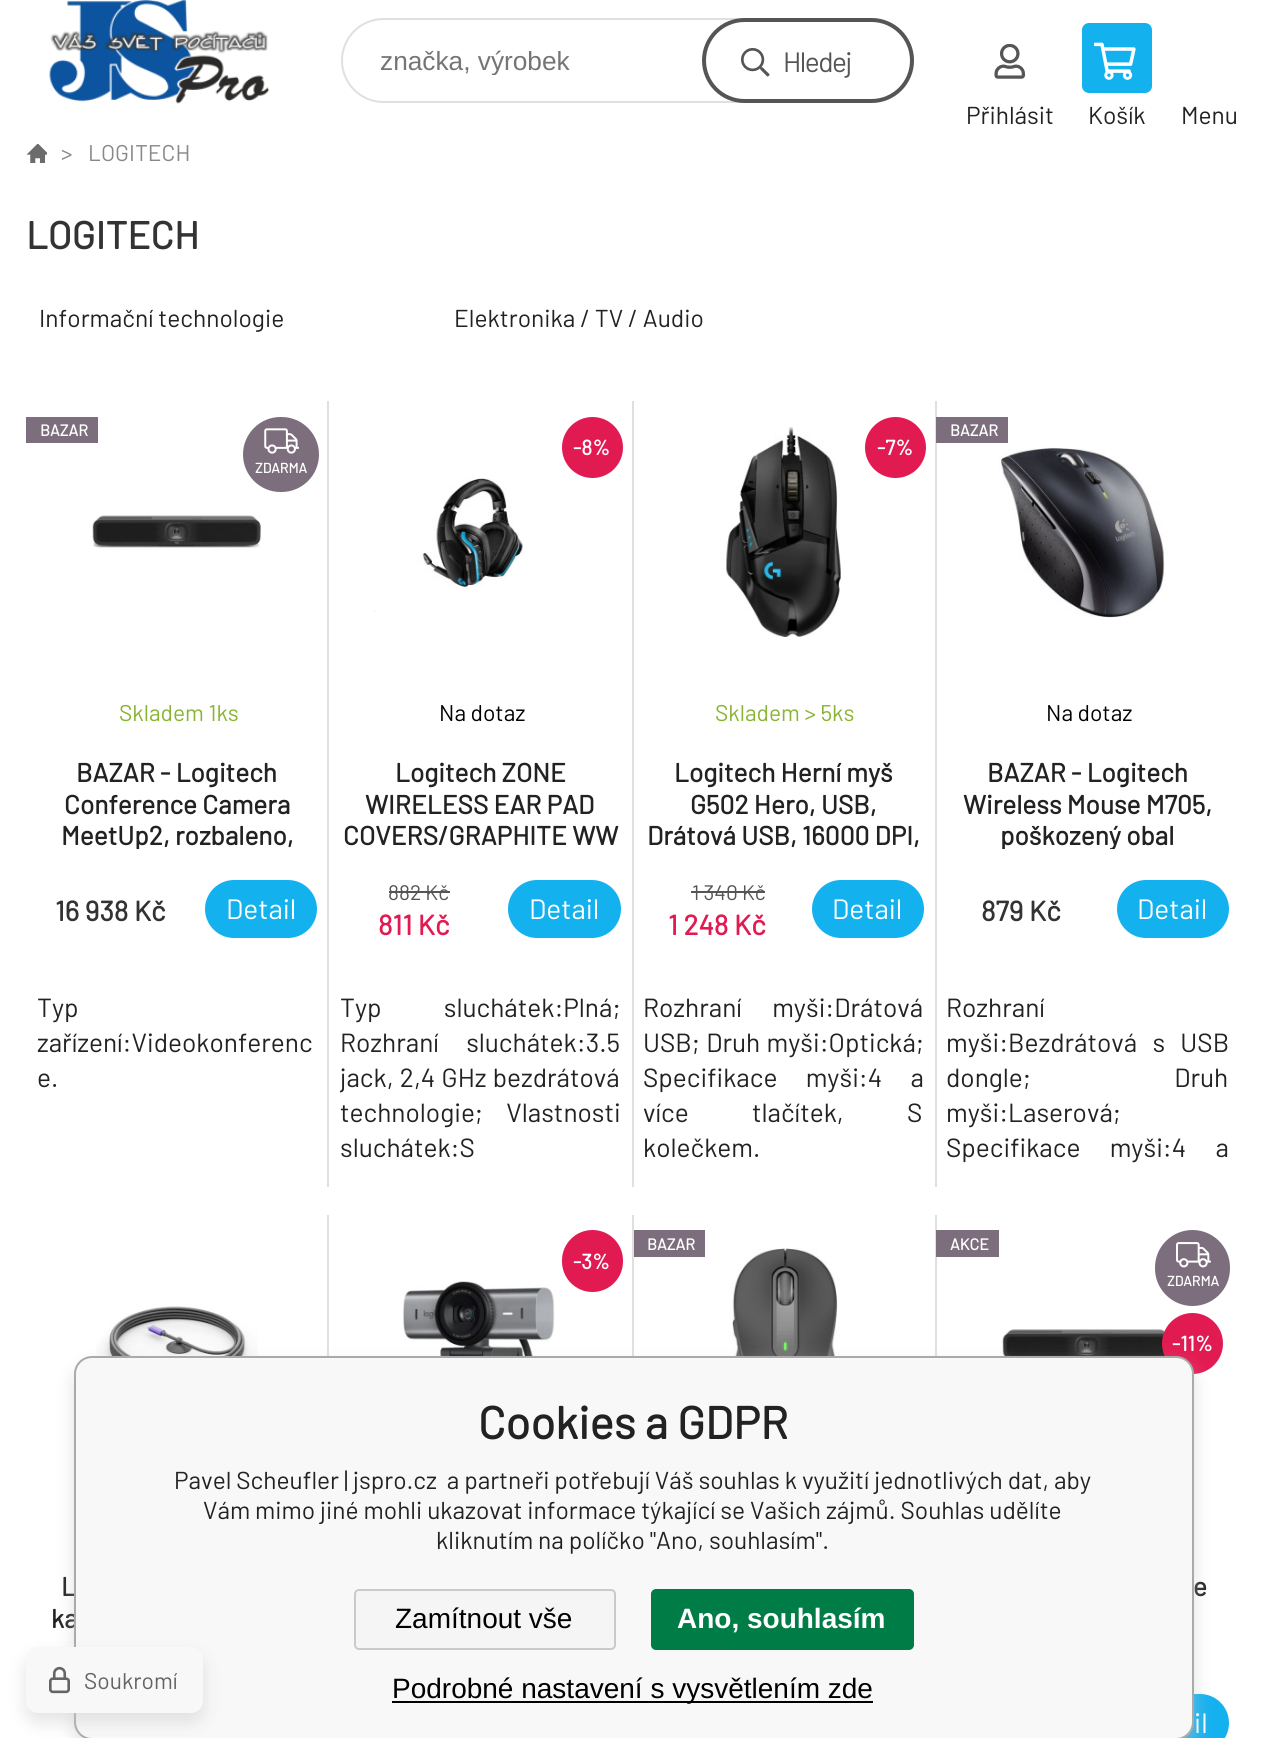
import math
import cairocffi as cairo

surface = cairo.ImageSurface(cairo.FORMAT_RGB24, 1265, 1738)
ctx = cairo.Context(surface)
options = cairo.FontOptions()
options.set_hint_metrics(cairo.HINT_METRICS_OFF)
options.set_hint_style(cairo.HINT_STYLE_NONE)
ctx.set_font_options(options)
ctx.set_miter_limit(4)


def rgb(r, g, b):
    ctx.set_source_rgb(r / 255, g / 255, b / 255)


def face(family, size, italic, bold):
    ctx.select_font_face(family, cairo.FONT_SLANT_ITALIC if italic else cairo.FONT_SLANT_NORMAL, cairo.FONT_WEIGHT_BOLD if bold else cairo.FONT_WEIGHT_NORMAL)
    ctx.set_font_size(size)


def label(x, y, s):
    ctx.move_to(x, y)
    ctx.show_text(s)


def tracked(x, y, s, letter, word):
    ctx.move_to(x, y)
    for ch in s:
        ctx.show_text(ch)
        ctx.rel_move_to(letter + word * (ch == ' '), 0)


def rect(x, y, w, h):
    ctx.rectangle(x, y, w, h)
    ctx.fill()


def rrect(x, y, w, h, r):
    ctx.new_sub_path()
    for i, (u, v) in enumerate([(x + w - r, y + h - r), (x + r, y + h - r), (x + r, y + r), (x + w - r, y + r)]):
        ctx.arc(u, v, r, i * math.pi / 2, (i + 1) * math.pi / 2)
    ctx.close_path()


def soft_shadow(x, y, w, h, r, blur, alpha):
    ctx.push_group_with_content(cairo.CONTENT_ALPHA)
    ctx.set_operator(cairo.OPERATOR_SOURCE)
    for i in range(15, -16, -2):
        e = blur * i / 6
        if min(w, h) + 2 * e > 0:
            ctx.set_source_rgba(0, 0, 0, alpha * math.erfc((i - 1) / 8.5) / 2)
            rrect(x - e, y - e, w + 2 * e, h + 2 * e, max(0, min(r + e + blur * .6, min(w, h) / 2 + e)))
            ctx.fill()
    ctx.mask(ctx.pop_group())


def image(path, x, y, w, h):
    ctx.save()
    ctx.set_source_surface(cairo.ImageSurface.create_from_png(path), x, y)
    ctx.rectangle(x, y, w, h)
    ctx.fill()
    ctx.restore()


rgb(255, 255, 255)
ctx.paint()
image('image0.png', 49, 0, 221, 104)
rrect(342, 19, 571, 83, 41.5)
rgb(224, 224, 224)
ctx.stroke()
ctx.save()
ctx.rectangle(380, 46, 304, 29)
ctx.clip()
face('Liberation Sans', 26.25, 0, 0)
rgb(117, 117, 117)
label(380, 70, 'značka, výrobek')
ctx.restore()
image('image1.png', 740, 48, 30, 29)
rrect(704, 20, 208, 81, 40.5)
rgb(85, 85, 85)
ctx.set_line_width(4)
ctx.stroke()
face('Barlow', 28, 0, 0)
tracked(783, 72, 'Hledej', -1.5, 0)
image('image2.png', 994, 44, 32, 35)
face('Barlow', 24.5, 0, 0)
rgb(34, 34, 34)
label(966, 124, 'Přihlásit')
rgb(20, 177, 239)
rrect(1082, 23, 70, 70, 7)
ctx.fill()
image('image3.png', 1094, 42, 42, 38)
rgb(34, 34, 34)
label(1088, 124, 'Košík')
label(1181, 124, 'Menu')
image('image4.png', 26, 144, 21, 19)
face('Barlow', 22.75, 0, 0)
rgb(136, 136, 136)
label(61, 161, '>')
label(88, 161, 'LOGITECH')
face('Barlow', 38.5, 0, 1)
rgb(51, 51, 51)
label(26, 249, 'LOGITECH')
face('Barlow', 24.5, 0, 0)
rgb(34, 34, 34)
label(39, 327, 'Informační technologie')
label(454, 327, 'Elektronika / TV / Audio')
rgb(224, 224, 224)
rect(327, 401, 2, 786)
rgb(124, 110, 125)
rect(26, 417, 72, 26)
face('Barlow', 16, 0, 1)
rgb(255, 255, 255)
label(40, 436, 'BAZAR')
rgb(124, 110, 125)
rrect(243, 417, 76, 75, 37.5)
ctx.fill()
image('image5.png', 264, 428, 35, 26)
face('Barlow', 14, 0, 1)
rgb(255, 255, 255)
label(255, 473, 'ZDARMA')
image('image6.png', 92, 515, 169, 33)
face('Barlow', 22.75, 0, 0)
rgb(137, 180, 50)
label(119, 721, 'Skladem 1ks')
face('Barlow', 28, 0, 1)
rgb(51, 51, 51)
label(55, 921, '16 938 Kč')
rgb(20, 177, 239)
rrect(205, 880, 112, 58, 29)
ctx.fill()
face('Barlow', 28, 0, 0)
rgb(255, 255, 255)
label(226, 919, 'Detail')
face('Barlow', 26.25, 0, 1)
rgb(34, 34, 34)
label(76, 782, 'BAZAR - Logitech')
label(64, 814, 'Conference Camera')
ctx.save()
ctx.rectangle(37, 756, 280, 93)
ctx.clip()
label(61, 845, 'MeetUp2, rozbaleno,')
ctx.restore()
face('Barlow', 26.25, 0, 0)
label(37, 1017, 'Typ')
label(37, 1052, 'zařízení:Videokonferenc')
label(37, 1087, 'e.')
rgb(224, 224, 224)
rect(632, 401, 2, 786)
rgb(226, 26, 82)
ctx.new_path()
ctx.arc(592.5, 447.5, 30.5, 0, 2 * math.pi)
ctx.fill()
face('Barlow', 21, 0, 1)
rgb(255, 255, 255)
label(573, 455, '-8%')
image('image7.png', 374, 478, 149, 134)
face('Barlow', 22.75, 0, 0)
rgb(0, 0, 0)
label(439, 721, 'Na dotaz')
face('Barlow', 21, 0, 0)
rgb(85, 85, 85)
label(388, 900, '882 Kč')
rect(389, 891, 61, 2)
face('Barlow', 28, 0, 1)
rgb(226, 26, 82)
label(378, 935, '811 Kč')
rgb(20, 177, 239)
rrect(508, 880, 113, 58, 29)
ctx.fill()
face('Barlow', 28, 0, 0)
rgb(255, 255, 255)
label(529, 919, 'Detail')
face('Barlow', 26.25, 0, 1)
rgb(34, 34, 34)
label(395, 782, 'Logitech ZONE')
label(365, 814, 'WIRELESS EAR PAD')
label(343, 845, 'COVERS/GRAPHITE WW')
face('Barlow', 26.25, 0, 0)
tracked(340, 1017, 'Typ sluchátek:Plná;', 0, 57)
tracked(340, 1052, 'Rozhraní sluchátek:3.5', 0, 22)
ctx.save()
ctx.rectangle(340, 945, 281, 224)
ctx.clip()
tracked(340, 1087, 'jack, 2,4 GHz bezdrátová', 0, 1)
ctx.restore()
tracked(340, 1122, 'technologie; Vlastnosti', 0, 18)
label(340, 1157, 'sluchátek:S')
rgb(224, 224, 224)
rect(935, 401, 2, 786)
image('image8.png', 726, 427, 115, 210)
rgb(226, 26, 82)
ctx.arc(895.5, 447.5, 30.5, 0, 2 * math.pi)
ctx.fill()
face('Barlow', 21, 0, 1)
rgb(255, 255, 255)
label(877, 455, '-7%')
face('Barlow', 22.75, 0, 0)
rgb(137, 180, 50)
label(715, 721, 'Skladem > 5ks')
face('Barlow', 21, 0, 0)
rgb(85, 85, 85)
label(692, 900, '1 340 Kč')
rect(691, 891, 74, 2)
face('Barlow', 28, 0, 1)
rgb(226, 26, 82)
label(668, 935, '1 248 Kč')
rgb(20, 177, 239)
rrect(812, 880, 112, 58, 29)
ctx.fill()
face('Barlow', 28, 0, 0)
rgb(255, 255, 255)
label(832, 919, 'Detail')
face('Barlow', 26.25, 0, 1)
rgb(34, 34, 34)
label(674, 782, 'Logitech Herní myš')
label(690, 814, 'G502 Hero, USB,')
label(647, 845, 'Drátová USB, 16000 DPI,')
face('Barlow', 26.25, 0, 0)
tracked(643, 1017, 'Rozhraní myši:Drátová', 0, 25)
tracked(643, 1052, 'USB; Druh myši:Optická;', 0, 1)
tracked(643, 1087, 'Specifikace myši:4 a', 0, 23)
tracked(643, 1122, 'více tlačítek, S', 0, 58)
label(643, 1157, 'kolečkem.')
rgb(124, 110, 125)
rect(936, 417, 72, 26)
face('Barlow', 16, 0, 1)
rgb(255, 255, 255)
label(950, 436, 'BAZAR')
image('image9.png', 998, 447, 167, 171)
face('Barlow', 22.75, 0, 0)
rgb(0, 0, 0)
label(1046, 721, 'Na dotaz')
face('Barlow', 28, 0, 1)
rgb(51, 51, 51)
label(981, 921, '879 Kč')
rgb(20, 177, 239)
rrect(1117, 880, 112, 58, 29)
ctx.fill()
face('Barlow', 28, 0, 0)
rgb(255, 255, 255)
label(1137, 919, 'Detail')
face('Barlow', 26.25, 0, 1)
rgb(34, 34, 34)
label(987, 782, 'BAZAR - Logitech')
label(963, 814, 'Wireless Mouse M705,')
ctx.save()
ctx.rectangle(947, 756, 282, 93)
ctx.clip()
label(1000, 845, 'poškozený obal')
ctx.restore()
face('Barlow', 26.25, 0, 0)
label(946, 1017, 'Rozhraní')
tracked(946, 1052, 'myši:Bezdrátová s USB', 0, 10)
tracked(946, 1087, 'dongle; Druh', 0, 138)
label(946, 1122, 'myši:Laserová;')
tracked(946, 1157, 'Specifikace myši:4 a', 0, 24)
rgb(224, 224, 224)
rect(935, 1215, 2, 141)
image('image10.png', 699, 1248, 143, 108)
rgb(124, 110, 125)
rect(634, 1230, 71, 27)
face('Barlow', 16, 0, 1)
rgb(255, 255, 255)
label(647, 1250, 'BAZAR')
rgb(124, 110, 125)
rect(936, 1230, 63, 27)
rgb(255, 255, 255)
label(950, 1250, 'AKCE')
image('image11.png', 1002, 1329, 164, 27)
rgb(124, 110, 125)
rrect(1155, 1230, 75, 76, 37.5)
ctx.fill()
image('image12.png', 1176, 1242, 35, 26)
face('Barlow', 14, 0, 1)
rgb(255, 255, 255)
label(1167, 1286, 'ZDARMA')
rgb(226, 26, 82)
ctx.new_path()
ctx.arc(1192.5, 1343.5, 30.5, 0, 2 * math.pi)
ctx.fill()
face('Barlow', 21, 0, 1)
rgb(255, 255, 255)
label(1172, 1351, '-11%')
face('Barlow', 26.25, 0, 1)
rgb(34, 34, 34)
label(1193, 1596, 'e')
rgb(20, 177, 239)
rrect(1117, 1694, 112, 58, 29)
ctx.fill()
face('Barlow', 28, 0, 0)
rgb(255, 255, 255)
label(1194, 1733, 'il')
rgb(224, 224, 224)
rect(632, 1215, 2, 141)
rgb(226, 26, 82)
rrect(562, 1230, 61, 62, 30.5)
ctx.fill()
face('Barlow', 21, 0, 1)
rgb(255, 255, 255)
label(573, 1269, '-3%')
image('image13.png', 402, 1281, 153, 75)
rgb(224, 224, 224)
rect(327, 1215, 2, 141)
image('image14.png', 96, 1306, 162, 50)
face('Barlow', 26.25, 0, 1)
rgb(34, 34, 34)
label(61, 1596, 'L')
label(51, 1628, 'ka')
rgb(200, 200, 200)
soft_shadow(74, 1365, 1120, 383, 18, 9, 0.5)
rgb(248, 248, 248)
rrect(75, 1357, 1118, 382, 17)
ctx.fill_preserve()
rgb(170, 170, 170)
ctx.set_line_width(2)
ctx.stroke()
rgb(200, 200, 200)
soft_shadow(26, 1656, 177, 66, 12, 9, 0.5)
rgb(248, 248, 248)
rrect(26, 1647, 177, 66, 12)
ctx.fill()
image('image15.png', 49, 1666, 21, 28)
face('Barlow', 22.75, 0, 0)
rgb(100, 100, 100)
label(84, 1689, 'Soukromí')
face('Barlow', 45.5, 0, 1)
rgb(34, 34, 34)
label(478, 1439, 'Cookies a GDPR')
face('Barlow', 24.5, 0, 0)
label(174, 1489, 'Pavel Scheufler | jspro.cz  a partneři potřebují Váš souhlas k využití jednotlivých dat, aby')
label(203, 1519, 'Vám mimo jiné mohli ukazovat informace týkající se Vašich zájmů. Souhlas udělíte')
label(436, 1549, 'kliknutím na políčko "Ano, souhlasím".')
rgb(245, 245, 245)
rrect(355, 1590, 260, 59, 4)
ctx.fill_preserve()
rgb(202, 202, 202)
ctx.stroke()
face('Liberation Sans', 28, 0, 0)
rgb(0, 0, 0)
label(395, 1628, 'Zamítnout vše')
rgb(0, 124, 71)
rrect(652, 1590, 261, 59, 4)
ctx.fill_preserve()
ctx.stroke()
face('Liberation Sans', 28, 0, 1)
rgb(255, 255, 255)
label(677, 1628, 'Ano, souhlasím')
rgb(0, 0, 0)
rect(392, 1701, 481, 2)
face('Liberation Sans', 28, 0, 0)
label(392, 1698, 'Podrobné nastavení s vysvětlením zde')
surface.write_to_png('render.png')
